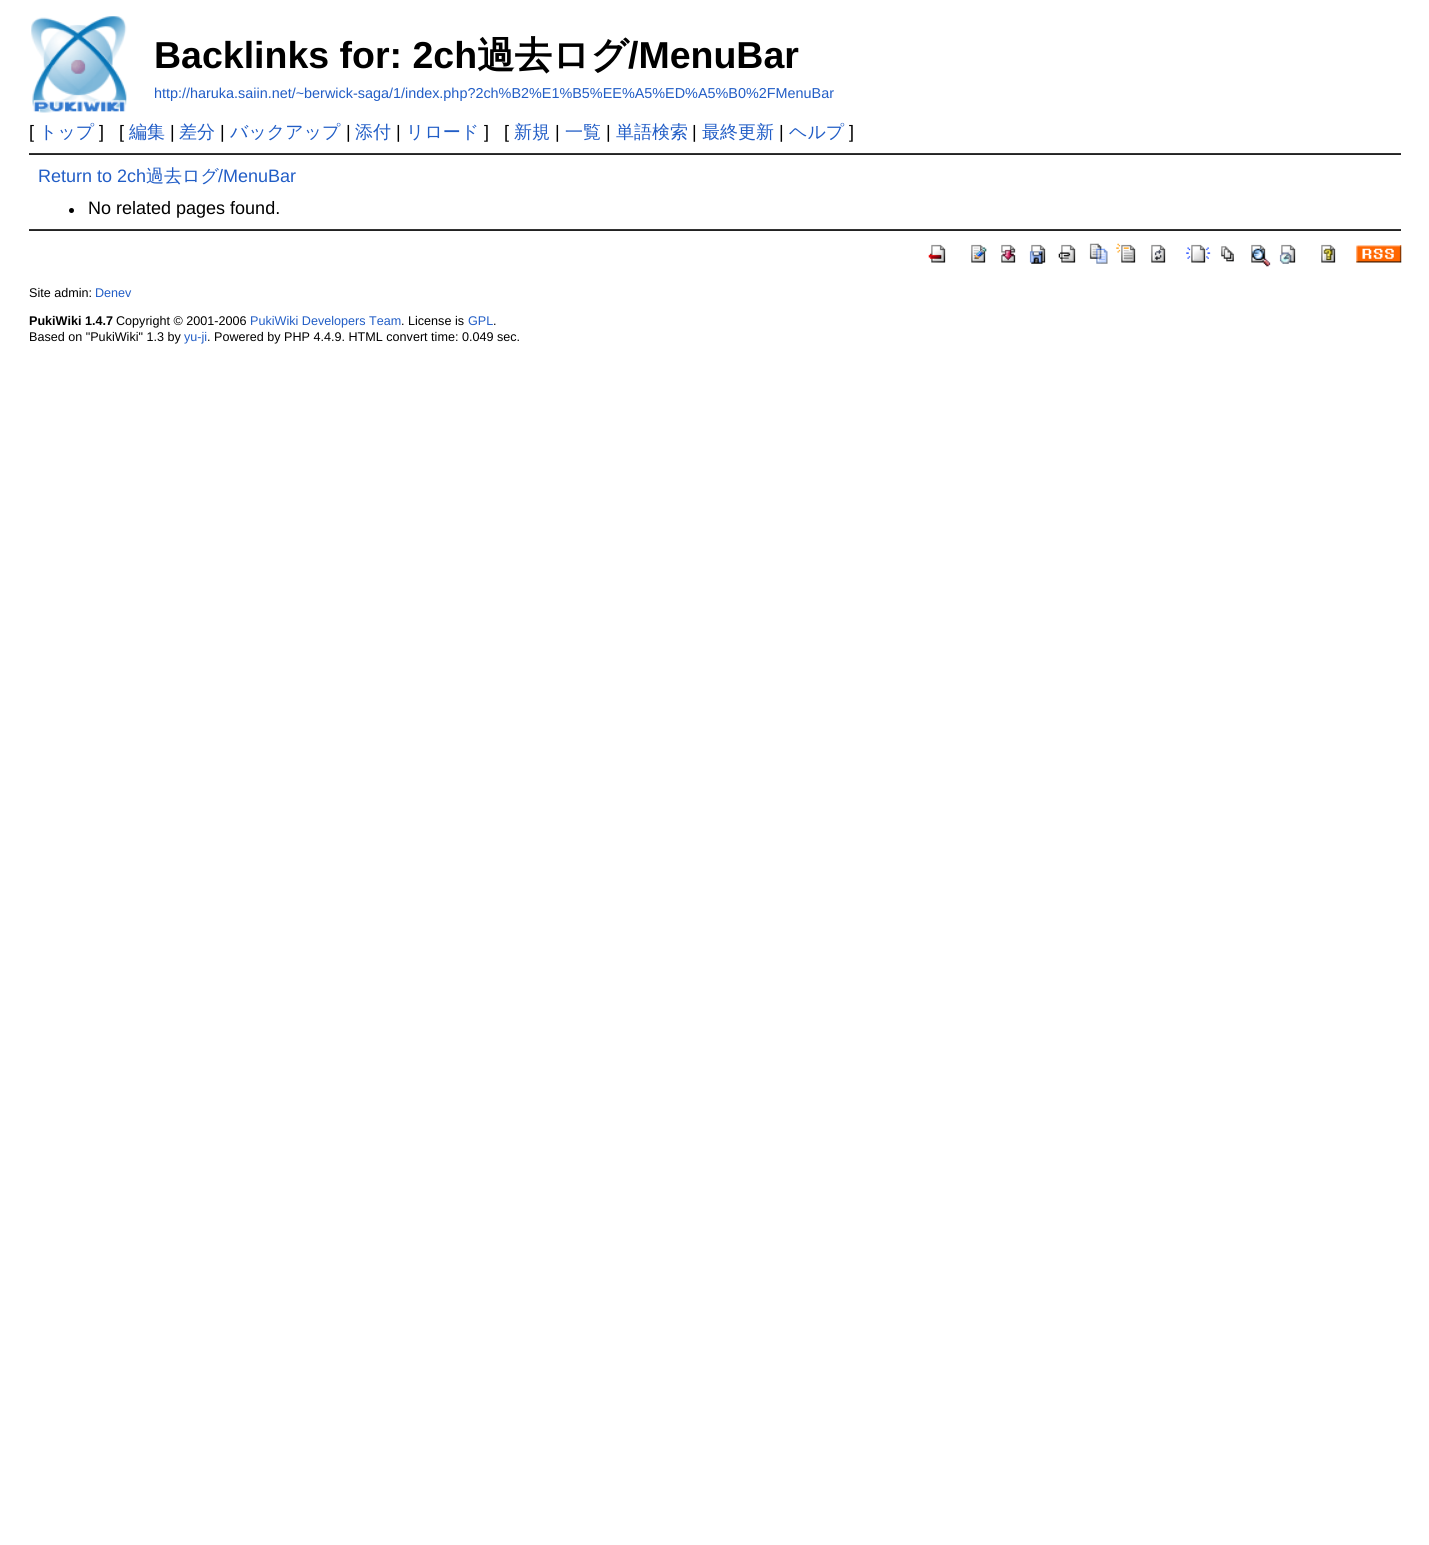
import math
import cairocffi as cairo

surface = cairo.ImageSurface(cairo.FORMAT_RGB24, 1429, 1545)
ctx = cairo.Context(surface)
options = cairo.FontOptions()
options.set_hint_metrics(cairo.HINT_METRICS_OFF)
options.set_hint_style(cairo.HINT_STYLE_NONE)
ctx.set_font_options(options)
ctx.set_miter_limit(4)


def rgb(r, g, b):
    ctx.set_source_rgb(r / 255, g / 255, b / 255)


def face(family, size, italic, bold):
    ctx.select_font_face(family, cairo.FONT_SLANT_ITALIC if italic else cairo.FONT_SLANT_NORMAL, cairo.FONT_WEIGHT_BOLD if bold else cairo.FONT_WEIGHT_NORMAL)
    ctx.set_font_size(size)


def label(x, y, s):
    ctx.move_to(x, y)
    ctx.show_text(s)


def rect(x, y, w, h):
    ctx.rectangle(x, y, w, h)
    ctx.fill()


def image(path, x, y, w, h):
    ctx.save()
    ctx.set_source_surface(cairo.ImageSurface.create_from_png(path), x, y)
    ctx.rectangle(x, y, w, h)
    ctx.fill()
    ctx.restore()


rgb(255, 255, 255)
ctx.paint()
image('image0.png', 31, 16, 96, 97)
face('Liberation Sans', 37.5, 0, 1)
rgb(0, 0, 0)
label(154, 68, 'Backlinks for: 2ch')
face('WenQuanYi Zen Hei', 37.5, 0, 1)
label(477, 68, '過去ログ')
face('Liberation Sans', 37.5, 0, 1)
label(628, 68, '/MenuBar')
face('Liberation Sans', 14.4, 0, 0)
rgb(33, 93, 198)
label(154, 98, 'http://haruka.saiin.net/~berwick-saga/1/index.php?2ch%B2%E1%B5%EE%A5%ED%A5%B0%2FMenuBar')
face('Liberation Sans', 18, 0, 0)
rgb(0, 0, 0)
label(29, 138, '[')
face('WenQuanYi Zen Hei Medium', 18, 0, 0)
rgb(33, 93, 198)
label(39, 138, 'トップ')
face('Liberation Sans', 18, 0, 0)
rgb(0, 0, 0)
label(99, 138, ']')
label(119, 138, '[')
face('WenQuanYi Zen Hei Medium', 18, 0, 0)
rgb(33, 93, 198)
label(129, 138, '編集')
face('Liberation Sans', 18, 0, 0)
rgb(0, 0, 0)
label(170, 138, '|')
face('WenQuanYi Zen Hei Medium', 18, 0, 0)
rgb(33, 93, 198)
label(179, 138, '差分')
face('Liberation Sans', 18, 0, 0)
rgb(0, 0, 0)
label(220, 138, '|')
face('WenQuanYi Zen Hei Medium', 18, 0, 0)
rgb(33, 93, 198)
label(230, 138, 'バックアップ')
face('Liberation Sans', 18, 0, 0)
rgb(0, 0, 0)
label(346, 138, '|')
face('WenQuanYi Zen Hei Medium', 18, 0, 0)
rgb(33, 93, 198)
label(355, 138, '添付')
face('Liberation Sans', 18, 0, 0)
rgb(0, 0, 0)
label(396, 138, '|')
face('WenQuanYi Zen Hei Medium', 18, 0, 0)
rgb(33, 93, 198)
label(406, 138, 'リロード')
face('Liberation Sans', 18, 0, 0)
rgb(0, 0, 0)
label(484, 138, ']')
label(504, 138, '[')
face('WenQuanYi Zen Hei Medium', 18, 0, 0)
rgb(33, 93, 198)
label(514, 138, '新規')
face('Liberation Sans', 18, 0, 0)
rgb(0, 0, 0)
label(555, 138, '|')
face('WenQuanYi Zen Hei Medium', 18, 0, 0)
rgb(33, 93, 198)
label(565, 138, '一覧')
face('Liberation Sans', 18, 0, 0)
rgb(0, 0, 0)
label(606, 138, '|')
face('WenQuanYi Zen Hei Medium', 18, 0, 0)
rgb(33, 93, 198)
label(616, 138, '単語検索')
face('Liberation Sans', 18, 0, 0)
rgb(0, 0, 0)
label(692, 138, '|')
face('WenQuanYi Zen Hei Medium', 18, 0, 0)
rgb(33, 93, 198)
label(702, 138, '最終更新')
face('Liberation Sans', 18, 0, 0)
rgb(0, 0, 0)
label(779, 138, '|')
face('WenQuanYi Zen Hei Medium', 18, 0, 0)
rgb(33, 93, 198)
label(789, 138, 'ヘルプ')
face('Liberation Sans', 18, 0, 0)
rgb(0, 0, 0)
label(849, 138, ']')
rgb(51, 51, 51)
rect(29, 153, 1372, 1)
rgb(34, 34, 34)
rect(29, 154, 1372, 1)
rgb(33, 93, 198)
label(38, 182, 'Return to 2ch')
face('WenQuanYi Zen Hei Medium', 18, 0, 0)
label(146, 182, '過去ログ')
face('Liberation Sans', 18, 0, 0)
label(218, 182, '/MenuBar')
rgb(0, 0, 0)
ctx.new_path()
ctx.arc(71.5, 210.5, 2.5, 0, 2 * math.pi)
ctx.fill()
label(88, 214, 'No related pages found.')
rgb(51, 51, 51)
rect(29, 229, 1372, 1)
rgb(34, 34, 34)
rect(29, 230, 1372, 1)
image('image1.png', 928, 244, 18, 19)
image('image2.png', 971, 244, 16, 19)
image('image3.png', 1001, 244, 15, 19)
image('image4.png', 1029, 244, 17, 20)
image('image5.png', 1058, 244, 18, 19)
image('image6.png', 1089, 243, 19, 21)
image('image7.png', 1116, 243, 20, 20)
image('image8.png', 1151, 244, 15, 19)
image('image9.png', 1186, 244, 25, 19)
image('image10.png', 1221, 246, 13, 16)
image('image11.png', 1251, 244, 20, 23)
image('image12.png', 1279, 244, 17, 20)
image('image13.png', 1321, 244, 15, 19)
image('image14.png', 1356, 245, 46, 18)
face('Liberation Sans', 12.6, 0, 0)
rgb(0, 0, 0)
label(29, 297, 'Site admin:')
rgb(33, 93, 198)
label(95, 297, 'Denev')
face('Liberation Sans', 12.6, 0, 1)
rgb(0, 0, 0)
label(29, 325, 'PukiWiki 1.4.7')
face('Liberation Sans', 12.6, 0, 0)
label(116, 325, 'Copyright © 2001-2006')
rgb(33, 93, 198)
label(250, 325, 'PukiWiki Developers Team')
rgb(0, 0, 0)
label(401, 325, '. License is')
rgb(33, 93, 198)
label(468, 325, 'GPL')
rgb(0, 0, 0)
label(493, 325, '.')
label(29, 341, 'Based on "PukiWiki" 1.3 by')
rgb(33, 93, 198)
label(184, 341, 'yu-ji')
rgb(0, 0, 0)
label(207, 341, '. Powered by PHP 4.4.9. HTML convert time: 0.049 sec.')
surface.write_to_png('render.png')
